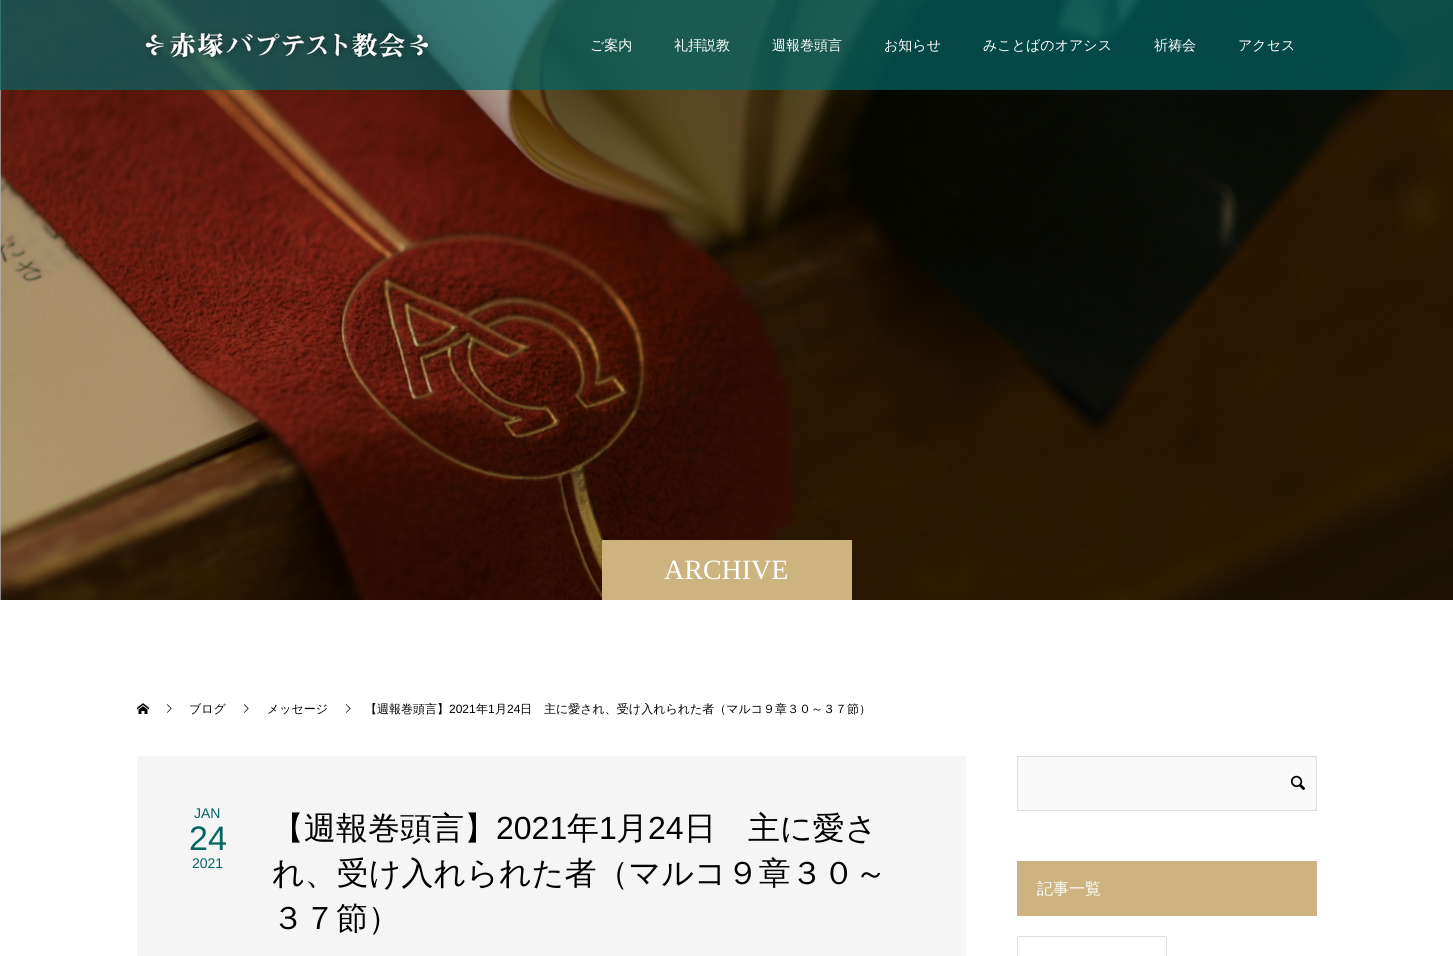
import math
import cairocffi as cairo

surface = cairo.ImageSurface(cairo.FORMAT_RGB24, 1453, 956)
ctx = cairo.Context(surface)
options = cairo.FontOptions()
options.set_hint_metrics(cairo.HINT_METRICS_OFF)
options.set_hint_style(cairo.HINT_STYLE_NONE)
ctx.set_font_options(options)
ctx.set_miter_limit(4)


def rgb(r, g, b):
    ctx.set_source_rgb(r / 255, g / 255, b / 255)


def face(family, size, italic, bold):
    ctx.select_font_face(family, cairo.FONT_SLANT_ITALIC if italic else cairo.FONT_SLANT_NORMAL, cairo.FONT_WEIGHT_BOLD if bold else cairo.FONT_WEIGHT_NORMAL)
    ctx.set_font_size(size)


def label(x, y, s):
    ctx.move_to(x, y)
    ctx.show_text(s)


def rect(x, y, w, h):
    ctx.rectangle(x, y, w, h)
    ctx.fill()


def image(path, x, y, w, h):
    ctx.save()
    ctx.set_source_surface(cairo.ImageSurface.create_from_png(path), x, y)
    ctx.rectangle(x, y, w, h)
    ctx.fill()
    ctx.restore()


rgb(255, 255, 255)
ctx.paint()
rgb(179, 179, 179)
rect(0, 0, 1, 600)
image('image1.png', 0, 0, 1453, 600)
ctx.set_source_rgba(0.012, 0.396, 0.392, 0.7)
rect(0, 0, 1453, 90)
image('image0.png', 143, 29, 289, 31)
face('WenQuanYi Zen Hei Medium', 14, 0, 0)
rgb(255, 255, 255)
label(590, 50, 'ご案内')
label(674, 50, '礼拝説教')
label(772, 50, '週報巻頭言')
label(884, 50, 'お知らせ')
label(983, 50, 'みことばのオアシス')
label(1154, 50, '祈祷会')
label(1238, 50, 'アクセス')
rgb(205, 179, 128)
rect(602, 540, 250, 60)
face('Liberation Serif', 28, 0, 0)
rgb(255, 255, 255)
label(664, 579, 'ARCHIVE')
image('image2.png', 137, 703, 12, 11)
image('image3.png', 167, 704, 5, 9)
face('WenQuanYi Zen Hei Medium', 12, 0, 0)
rgb(0, 0, 0)
label(189, 713, 'ブログ')
image('image3.png', 244, 704, 5, 9)
label(267, 713, 'メッセージ')
image('image3.png', 346, 704, 5, 9)
label(365, 713, '【週報巻頭言】')
face('Liberation Sans', 12, 0, 0)
label(449, 713, '2021')
face('WenQuanYi Zen Hei Medium', 12, 0, 0)
label(476, 713, '年')
face('Liberation Sans', 12, 0, 0)
label(488, 713, '1')
face('WenQuanYi Zen Hei Medium', 12, 0, 0)
label(495, 713, '月')
face('Liberation Sans', 12, 0, 0)
label(507, 713, '24')
face('WenQuanYi Zen Hei Medium', 12, 0, 0)
label(520, 713, '日　主に愛され、受け入れられた者（マルコ９章３０～３７節）')
rgb(245, 245, 245)
rect(137, 756, 829, 200)
face('Liberation Sans', 14, 0, 0)
rgb(3, 101, 100)
label(194, 818, 'JAN')
face('Liberation Sans', 34, 0, 0)
label(189, 850, '24')
face('Liberation Sans', 14, 0, 0)
label(192, 868, '2021')
face('WenQuanYi Zen Hei Medium', 32, 0, 0)
rgb(0, 0, 0)
label(272, 839, '【週報巻頭言】')
face('Liberation Sans', 32, 0, 0)
label(496, 839, '2021')
face('WenQuanYi Zen Hei Medium', 32, 0, 0)
label(567, 839, '年')
face('Liberation Sans', 32, 0, 0)
label(599, 839, '1')
face('WenQuanYi Zen Hei Medium', 32, 0, 0)
label(616, 839, '月')
face('Liberation Sans', 32, 0, 0)
label(648, 839, '24')
face('WenQuanYi Zen Hei Medium', 32, 0, 0)
label(684, 839, '日　主に愛さ')
label(272, 884, 'れ、受け入れられた者（マルコ９章３０～')
label(272, 929, '３７節）')
rgb(249, 249, 249)
ctx.rectangle(1017.5, 756.5, 299, 54)
ctx.fill_preserve()
rgb(221, 221, 221)
ctx.set_line_width(1)
ctx.stroke()
image('image4.png', 1290, 775, 16, 15)
rgb(205, 179, 128)
rect(1017, 861, 300, 55)
face('WenQuanYi Zen Hei Medium', 16, 0, 0)
rgb(255, 255, 255)
label(1037, 894, '記事一覧')
rgb(221, 221, 221)
rect(1017, 936, 150, 1)
rect(1166, 936, 1, 20)
rect(1017, 936, 1, 20)
surface.write_to_png('render.png')
